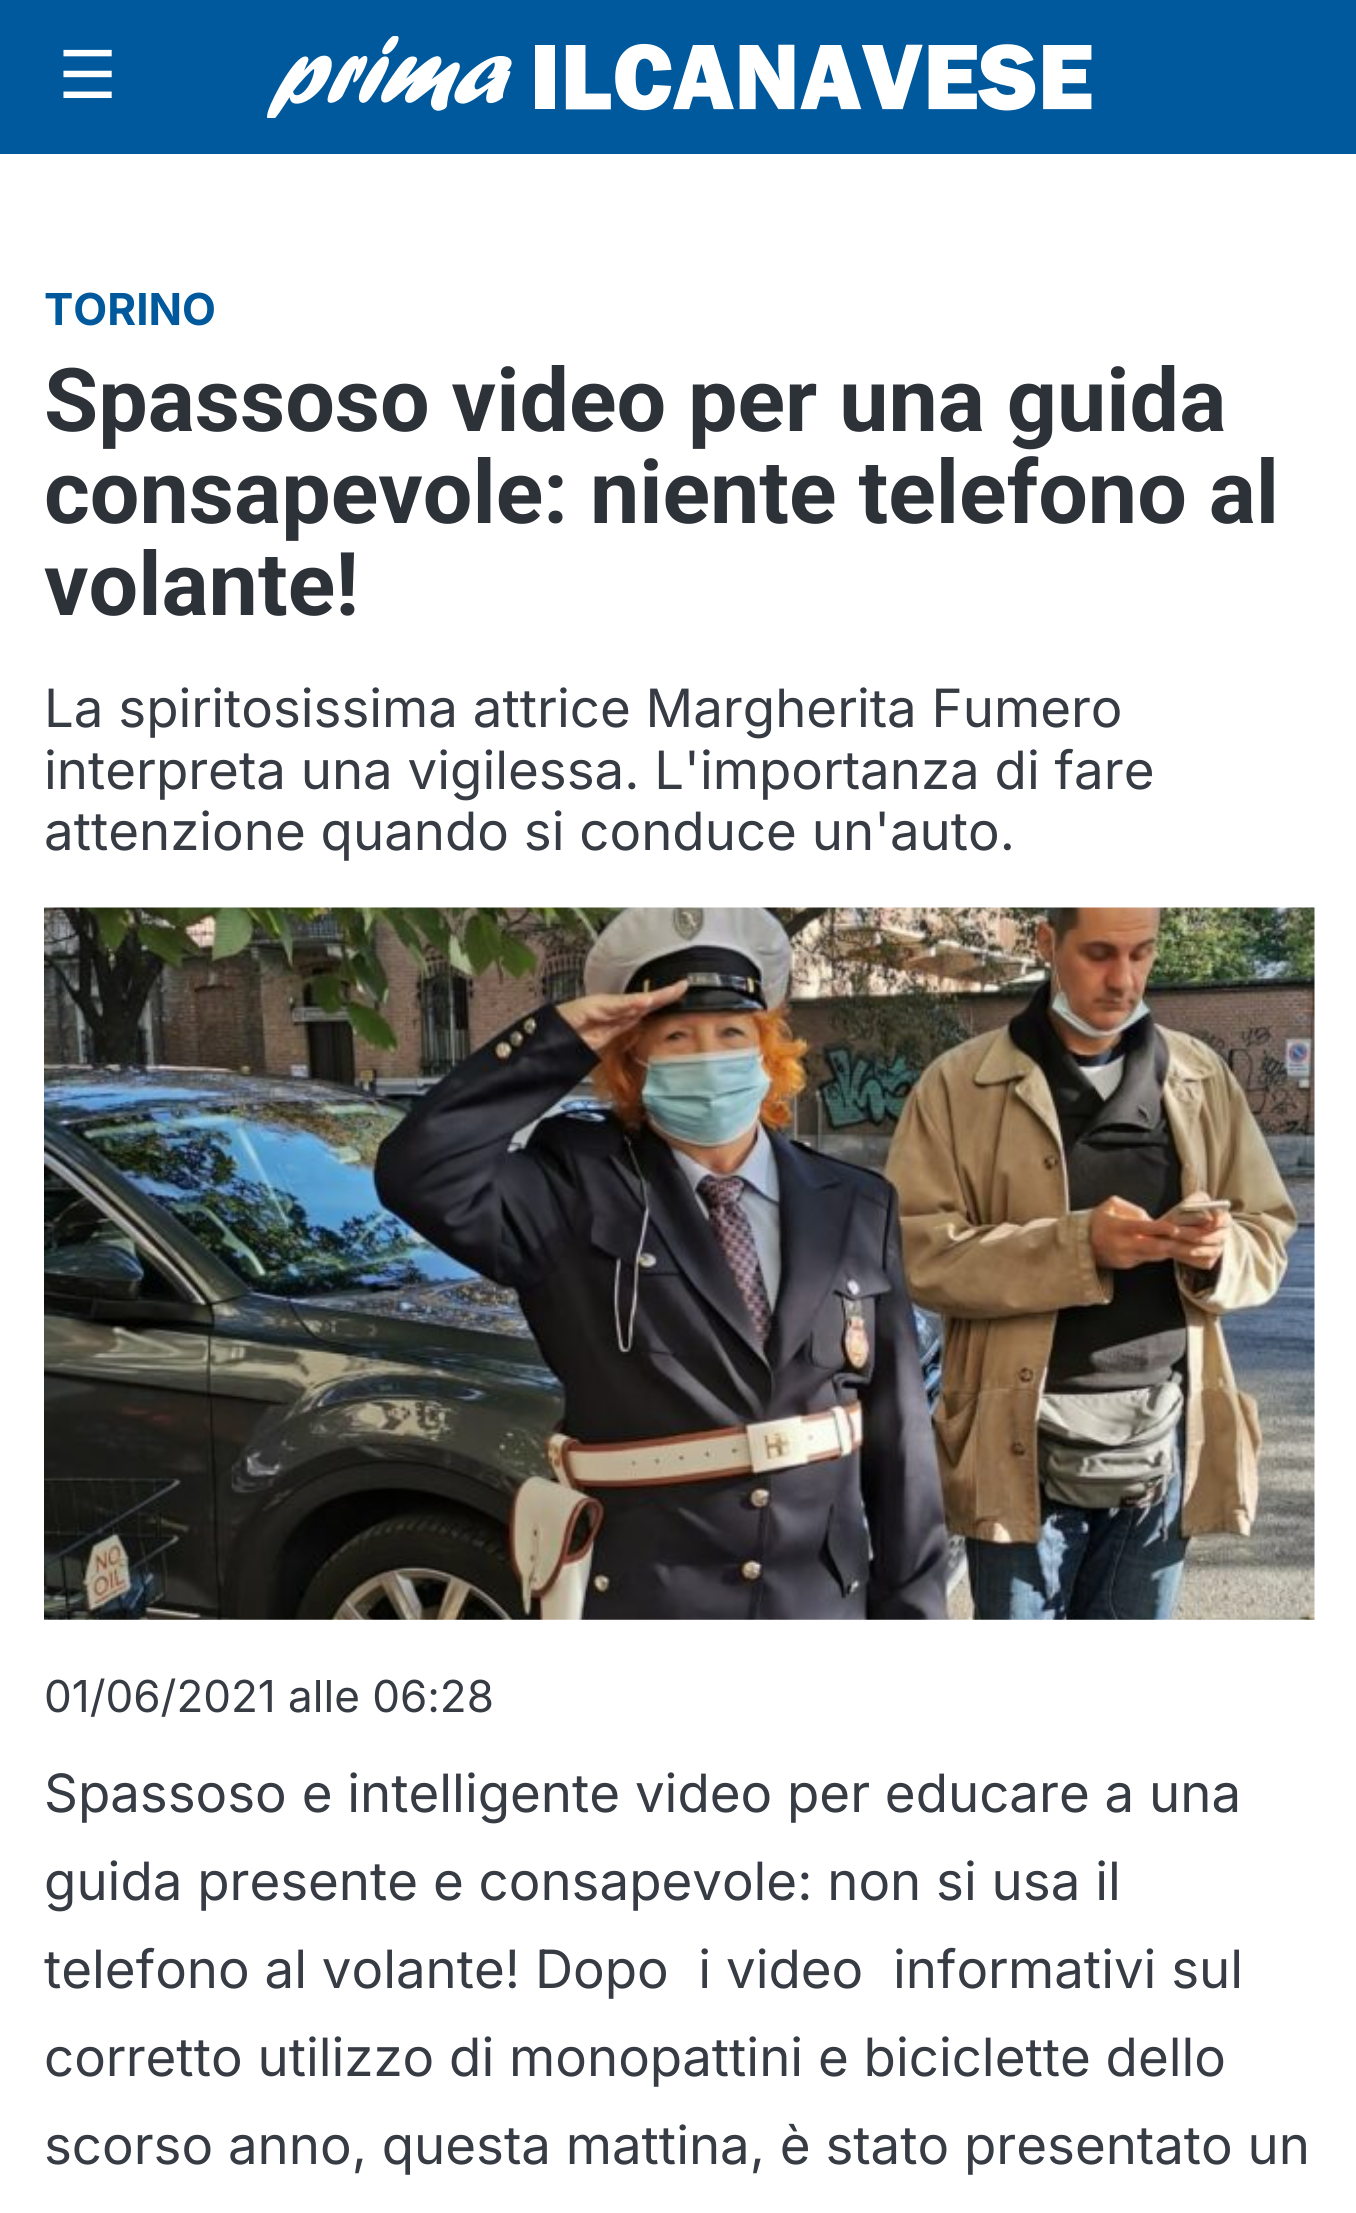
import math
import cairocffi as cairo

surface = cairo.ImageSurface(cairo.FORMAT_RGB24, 1356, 2213)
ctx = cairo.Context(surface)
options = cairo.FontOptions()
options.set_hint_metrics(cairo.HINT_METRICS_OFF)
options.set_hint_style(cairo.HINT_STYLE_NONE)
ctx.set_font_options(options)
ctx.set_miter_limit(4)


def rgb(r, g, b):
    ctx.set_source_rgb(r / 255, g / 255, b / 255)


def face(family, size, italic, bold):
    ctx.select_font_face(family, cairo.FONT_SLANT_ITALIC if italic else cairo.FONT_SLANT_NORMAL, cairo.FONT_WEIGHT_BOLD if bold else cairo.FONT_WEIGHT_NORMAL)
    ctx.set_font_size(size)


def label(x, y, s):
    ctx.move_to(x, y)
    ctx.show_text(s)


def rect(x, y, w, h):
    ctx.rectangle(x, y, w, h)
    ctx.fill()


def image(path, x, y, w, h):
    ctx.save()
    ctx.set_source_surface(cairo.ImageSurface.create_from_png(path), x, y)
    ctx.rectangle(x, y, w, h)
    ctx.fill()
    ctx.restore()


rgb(255, 255, 255)
ctx.paint()
rgb(0, 89, 156)
rect(0, 0, 1356, 154)
face('DejaVu Sans', 66, 0, 0)
rgb(255, 255, 255)
label(58, 98, '☰')
image('image0.png', 267, 36, 825, 82)
face('Inter', 44, 0, 1)
rgb(0, 89, 156)
label(44, 325, 'TORINO')
face('Roboto', 88, 0, 1)
rgb(45, 49, 56)
label(44, 431, 'Spassoso video per una guida')
label(44, 523, 'consapevole: niente telefono al')
label(44, 615, 'volante!')
face('Inter', 52.8, 0, 0)
rgb(55, 60, 68)
label(44, 727, 'La spiritosissima attrice Margherita Fumero')
label(44, 789, 'interpreta una vigilessa. L\'importanza di fare')
label(44, 850, 'attenzione quando si conduce un\'auto.')
image('image1.png', 44, 907, 1271, 713)
face('Inter', 44, 0, 0)
label(44, 1712, '01/06/2021 alle 06:28')
face('Inter', 52.8, 0, 0)
label(44, 1812, 'Spassoso e intelligente video per educare a una')
label(44, 1900, 'guida presente e consapevole: non si usa il')
label(44, 1988, 'telefono al volante! Dopo  i video  informativi sul')
label(44, 2076, 'corretto utilizzo di monopattini e biciclette dello')
label(44, 2164, 'scorso anno, questa mattina, è stato presentato un')
surface.write_to_png('render.png')
